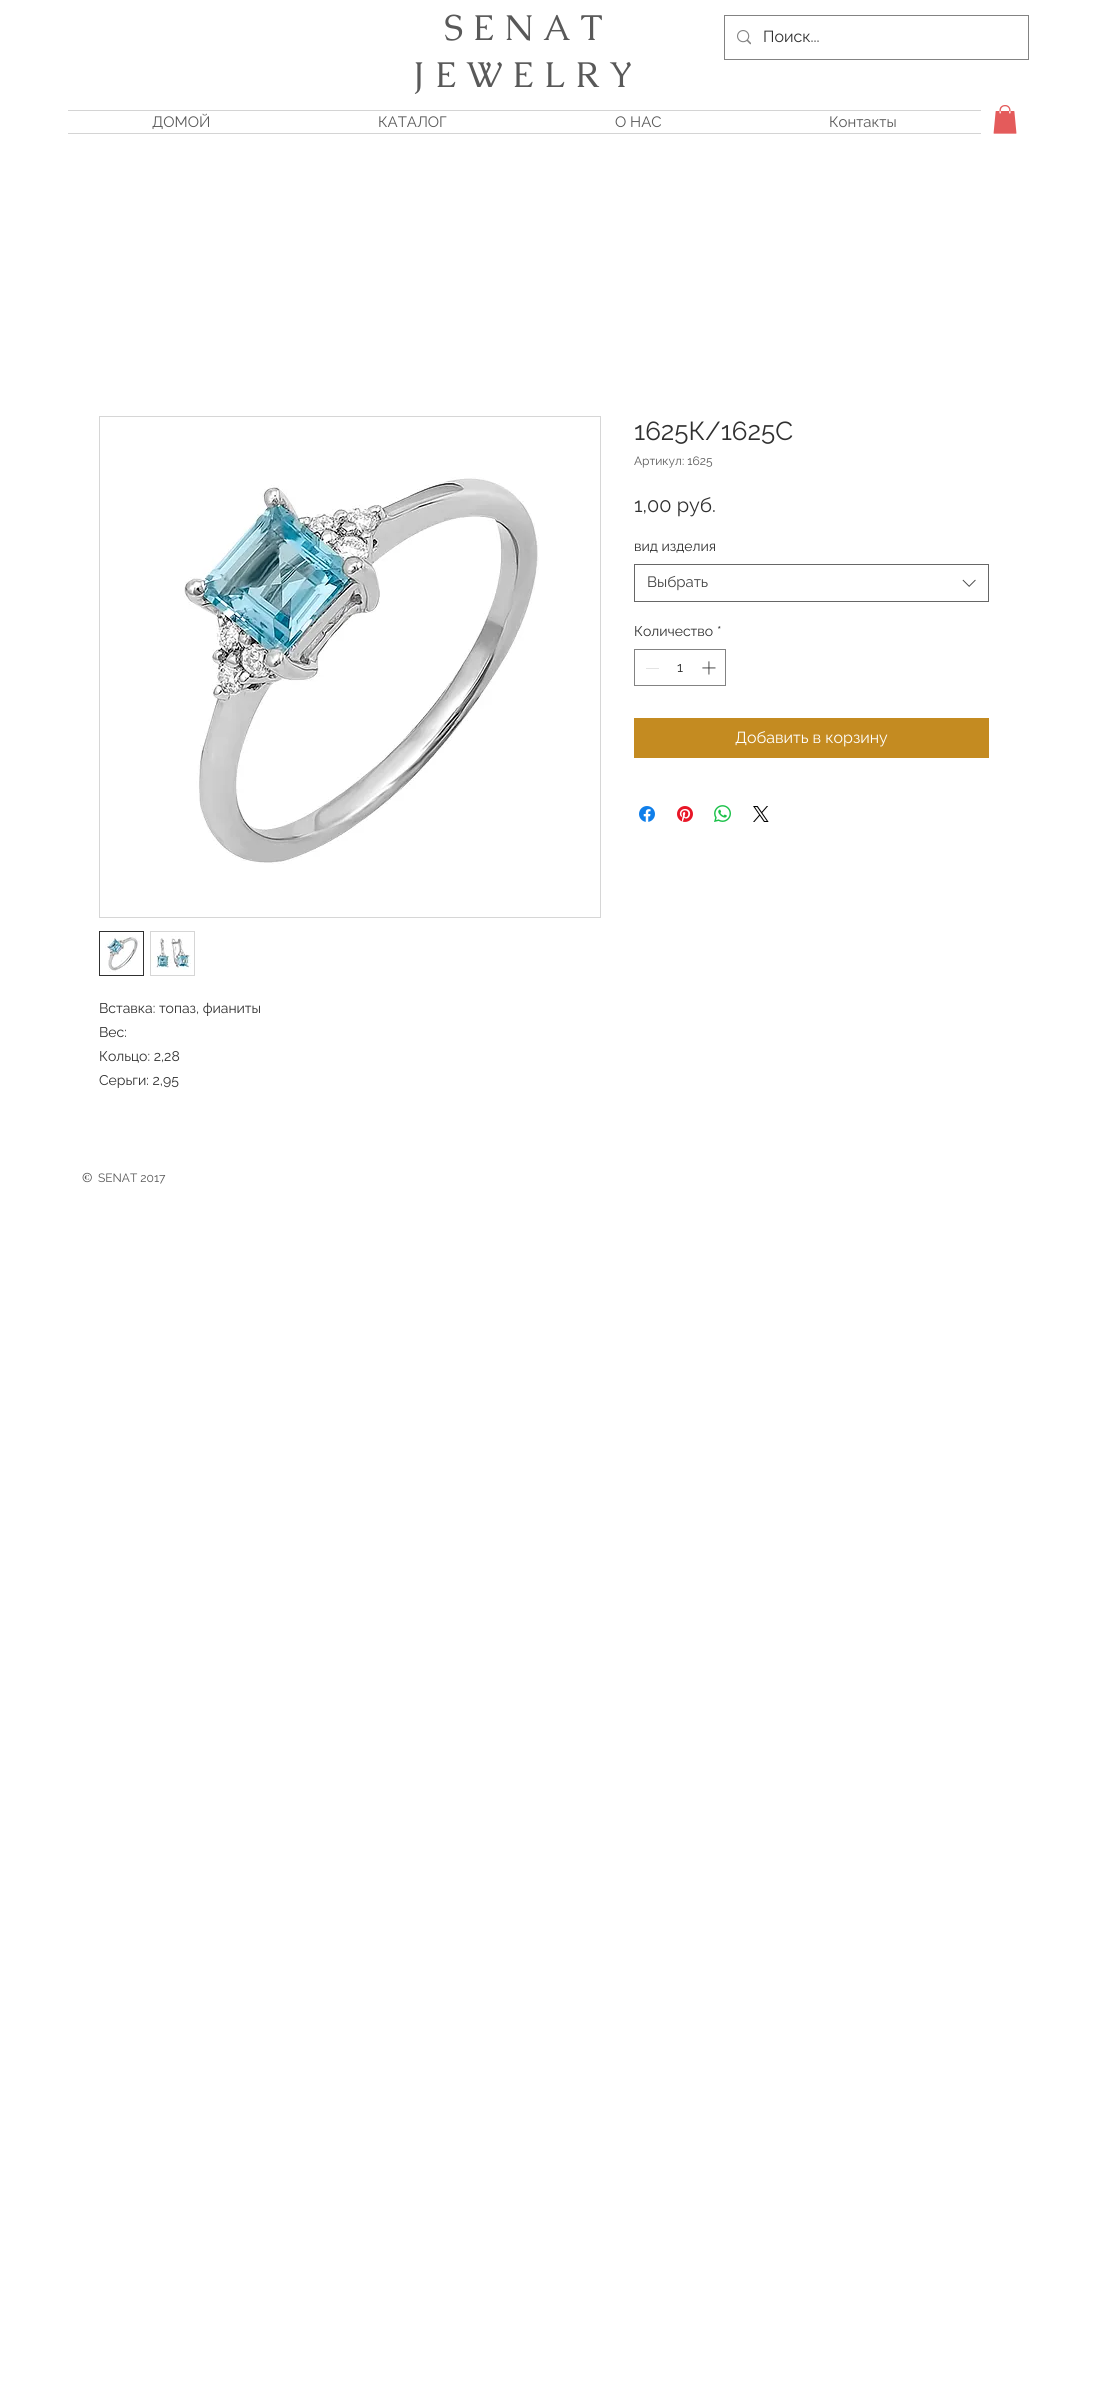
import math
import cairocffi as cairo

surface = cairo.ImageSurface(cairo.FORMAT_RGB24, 1107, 2381)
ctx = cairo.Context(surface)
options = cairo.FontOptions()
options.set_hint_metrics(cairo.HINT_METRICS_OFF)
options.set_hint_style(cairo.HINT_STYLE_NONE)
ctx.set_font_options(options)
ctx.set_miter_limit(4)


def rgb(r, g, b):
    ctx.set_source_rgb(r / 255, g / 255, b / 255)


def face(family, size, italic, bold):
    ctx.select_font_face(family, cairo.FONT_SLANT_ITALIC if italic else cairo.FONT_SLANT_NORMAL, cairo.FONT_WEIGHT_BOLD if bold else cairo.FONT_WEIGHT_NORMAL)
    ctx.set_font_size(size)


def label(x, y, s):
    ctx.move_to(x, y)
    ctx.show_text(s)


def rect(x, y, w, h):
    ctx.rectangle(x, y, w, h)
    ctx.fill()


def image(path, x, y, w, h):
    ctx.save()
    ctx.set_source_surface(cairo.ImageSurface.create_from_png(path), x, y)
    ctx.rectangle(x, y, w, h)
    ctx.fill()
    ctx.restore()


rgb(255, 255, 255)
ctx.paint()
face('Caudex', 36, 0, 0)
rgb(89, 89, 89)
label(444, 40, 'S E N A T')
label(413, 87, 'J E W E L R Y')
ctx.rectangle(724.5, 15.5, 304, 44)
rgb(131, 131, 131)
ctx.set_line_width(1)
ctx.stroke()
image('image0.png', 737, 30, 14, 15)
face('Raleway', 16, 0, 0)
rgb(48, 48, 48)
label(763, 42, 'Поиск...')
rgb(212, 212, 212)
rect(68, 110, 913, 1)
rect(68, 133, 913, 1)
face('Raleway', 15, 0, 0)
rgb(89, 89, 89)
label(152, 127, 'ДОМОЙ')
label(378, 127, 'КАТАЛОГ')
label(615, 127, 'О НАС')
label(829, 127, 'Контакты')
image('image1.png', 993, 105, 24, 29)
face('Raleway', 26, 0, 0)
rgb(48, 48, 48)
label(634, 440, '1625К/1625С')
face('Raleway', 12, 0, 0)
rgb(89, 89, 89)
label(634, 465, 'Артикул: 1625')
face('Raleway', 20, 0, 0)
rgb(48, 48, 48)
label(634, 512, '1,00 руб.')
face('Raleway', 14, 0, 0)
label(634, 551, 'вид изделия')
ctx.rectangle(634.5, 564.5, 354, 37)
rgb(102, 102, 102)
ctx.stroke()
face('Raleway', 15, 0, 0)
rgb(68, 68, 68)
label(647, 587, 'Выбрать')
image('image2.png', 962, 579, 14, 8)
face('Raleway', 14, 0, 0)
rgb(48, 48, 48)
label(634, 636, 'Количество')
label(717, 636, '*')
ctx.rectangle(634.5, 649.5, 91, 36)
rgb(131, 131, 131)
ctx.stroke()
rgb(227, 227, 227)
rect(646, 668, 13, 1)
rgb(48, 48, 48)
label(677, 672, '1')
image('image3.png', 702, 661, 14, 14)
rgb(196, 139, 33)
rect(634, 718, 355, 40)
face('Raleway', 16, 0, 0)
rgb(255, 255, 255)
label(735, 743, 'Добавить в корзину')
image('image4.png', 639, 806, 16, 16)
image('image5.png', 677, 806, 16, 16)
image('image6.png', 714, 805, 17, 17)
image('image7.png', 753, 806, 16, 16)
ctx.rectangle(99.5, 416.5, 501, 501)
rgb(214, 214, 214)
ctx.stroke()
image('image8.png', 184, 477, 355, 387)
ctx.rectangle(99.5, 931.5, 44, 44)
rgb(48, 48, 48)
ctx.stroke()
image('image9.png', 105, 936, 35, 36)
ctx.rectangle(150.5, 931.5, 44, 44)
rgb(214, 214, 214)
ctx.stroke()
image('image10.png', 151, 936, 40, 34)
face('Raleway', 14, 0, 0)
rgb(48, 48, 48)
label(99, 1013, 'Вставка: топаз, фианиты')
label(99, 1037, 'Вес:')
label(99, 1061, 'Кольцо: 2,28')
label(99, 1085, 'Серьги: 2,95')
face('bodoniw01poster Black', 13, 0, 0)
rgb(89, 89, 89)
label(82, 1182, '©')
face('Raleway', 12, 0, 0)
label(98, 1182, 'SENAT 2017')
surface.write_to_png('render.png')
